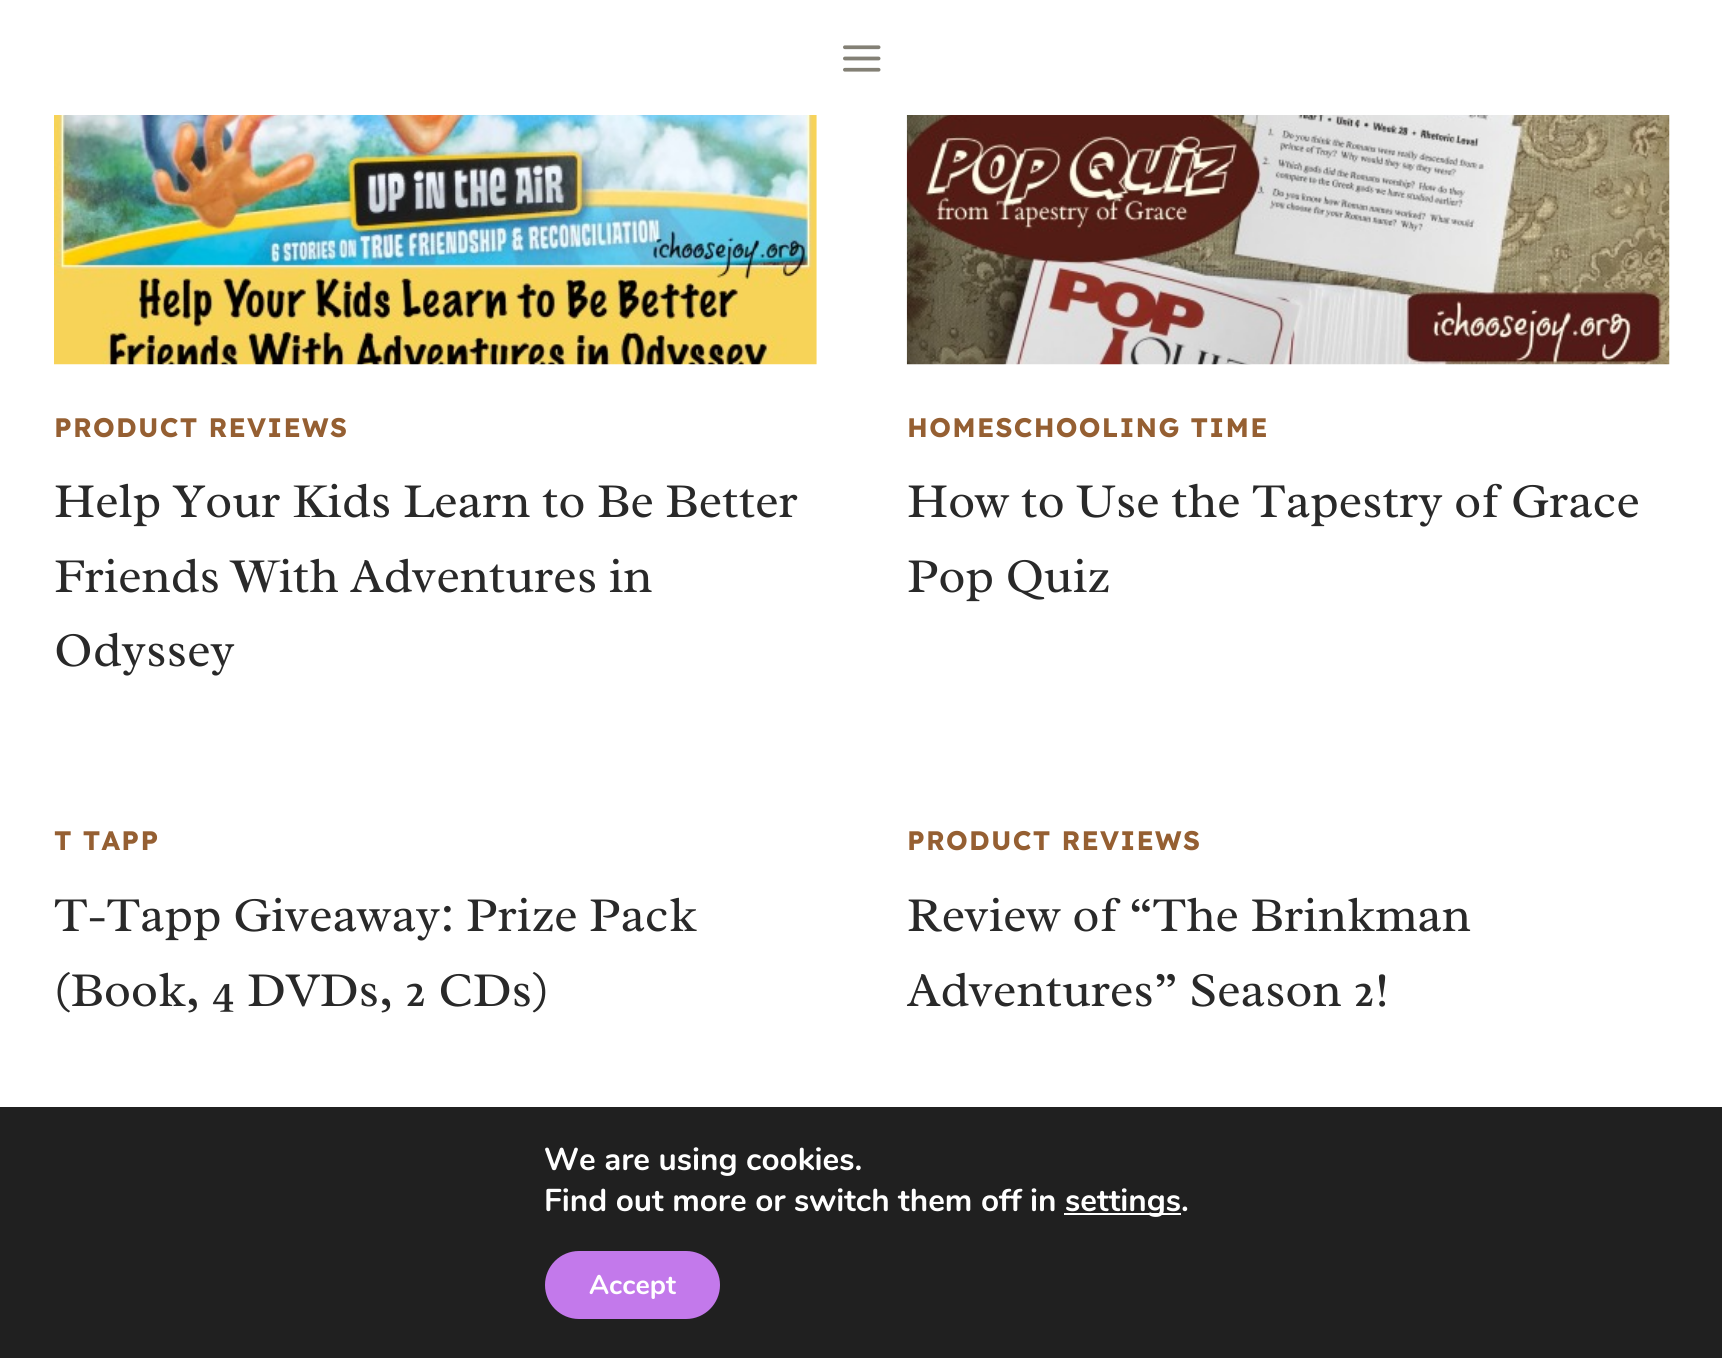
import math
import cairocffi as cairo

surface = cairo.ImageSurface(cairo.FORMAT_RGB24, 1722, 1358)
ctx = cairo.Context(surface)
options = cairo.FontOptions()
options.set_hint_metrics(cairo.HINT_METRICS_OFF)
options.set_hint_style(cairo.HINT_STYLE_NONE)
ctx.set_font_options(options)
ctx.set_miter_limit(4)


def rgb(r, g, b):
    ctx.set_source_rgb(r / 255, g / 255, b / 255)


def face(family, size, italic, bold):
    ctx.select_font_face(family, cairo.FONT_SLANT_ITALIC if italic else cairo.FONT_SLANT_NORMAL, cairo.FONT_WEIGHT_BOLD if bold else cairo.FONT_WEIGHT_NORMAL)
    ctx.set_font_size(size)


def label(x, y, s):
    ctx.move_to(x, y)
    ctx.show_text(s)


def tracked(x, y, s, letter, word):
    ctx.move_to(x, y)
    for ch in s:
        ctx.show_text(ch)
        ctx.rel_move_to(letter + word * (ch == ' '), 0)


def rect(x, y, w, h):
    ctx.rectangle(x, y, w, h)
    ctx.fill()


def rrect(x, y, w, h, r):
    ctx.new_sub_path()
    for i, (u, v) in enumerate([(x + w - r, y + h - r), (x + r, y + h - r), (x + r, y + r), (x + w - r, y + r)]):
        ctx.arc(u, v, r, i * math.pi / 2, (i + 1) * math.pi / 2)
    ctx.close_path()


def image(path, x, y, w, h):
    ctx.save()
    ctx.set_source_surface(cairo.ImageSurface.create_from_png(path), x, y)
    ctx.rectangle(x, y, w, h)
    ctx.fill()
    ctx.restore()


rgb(255, 255, 255)
ctx.paint()
image('image0.png', 843, 45, 38, 27)
image('image1.png', 54, 115, 763, 250)
face('Lexend', 26.75, 0, 1)
rgb(149, 95, 50)
tracked(54, 437, 'PRODUCT REVIEWS', 1.3, 0)
face('Radley', 49.5, 0, 0)
rgb(41, 41, 41)
label(54, 517, 'Help Your Kids Learn to Be Better')
label(54, 592, 'Friends With Adventures in')
label(54, 666, 'Odyssey')
image('image2.png', 906, 115, 764, 250)
face('Lexend', 26.75, 0, 1)
rgb(149, 95, 50)
tracked(907, 437, 'HOMESCHOOLING TIME', 1.3, 0)
face('Radley', 49.5, 0, 0)
rgb(41, 41, 41)
label(907, 517, 'How to Use the Tapestry of Grace')
label(907, 592, 'Pop Quiz')
face('Lexend', 26.75, 0, 1)
rgb(149, 95, 50)
tracked(54, 850, 'T TAPP', 1.3, 0)
face('Radley', 49.5, 0, 0)
rgb(41, 41, 41)
label(54, 931, 'T-Tapp Giveaway: Prize Pack')
label(54, 1006, '(Book, 4 DVDs, 2 CDs)')
face('Lexend', 26.75, 0, 1)
rgb(149, 95, 50)
tracked(907, 850, 'PRODUCT REVIEWS', 1.3, 0)
face('Radley', 49.5, 0, 0)
rgb(41, 41, 41)
label(907, 931, 'Review of “The Brinkman')
label(907, 1006, 'Adventures” Season 2!')
rgb(32, 32, 32)
rect(0, 1107, 1722, 251)
face('Nunito', 31.5, 0, 1)
rgb(255, 255, 255)
label(544, 1170, 'We are using cookies.')
label(544, 1211, 'Find out more or switch them off in')
rect(1064, 1213, 117, 2)
label(1065, 1211, 'settings.')
rgb(195, 121, 235)
rrect(545, 1251, 175, 68, 34)
ctx.fill()
face('Nunito', 27, 0, 1)
rgb(255, 255, 255)
label(589, 1294, 'Accept')
surface.write_to_png('render.png')
